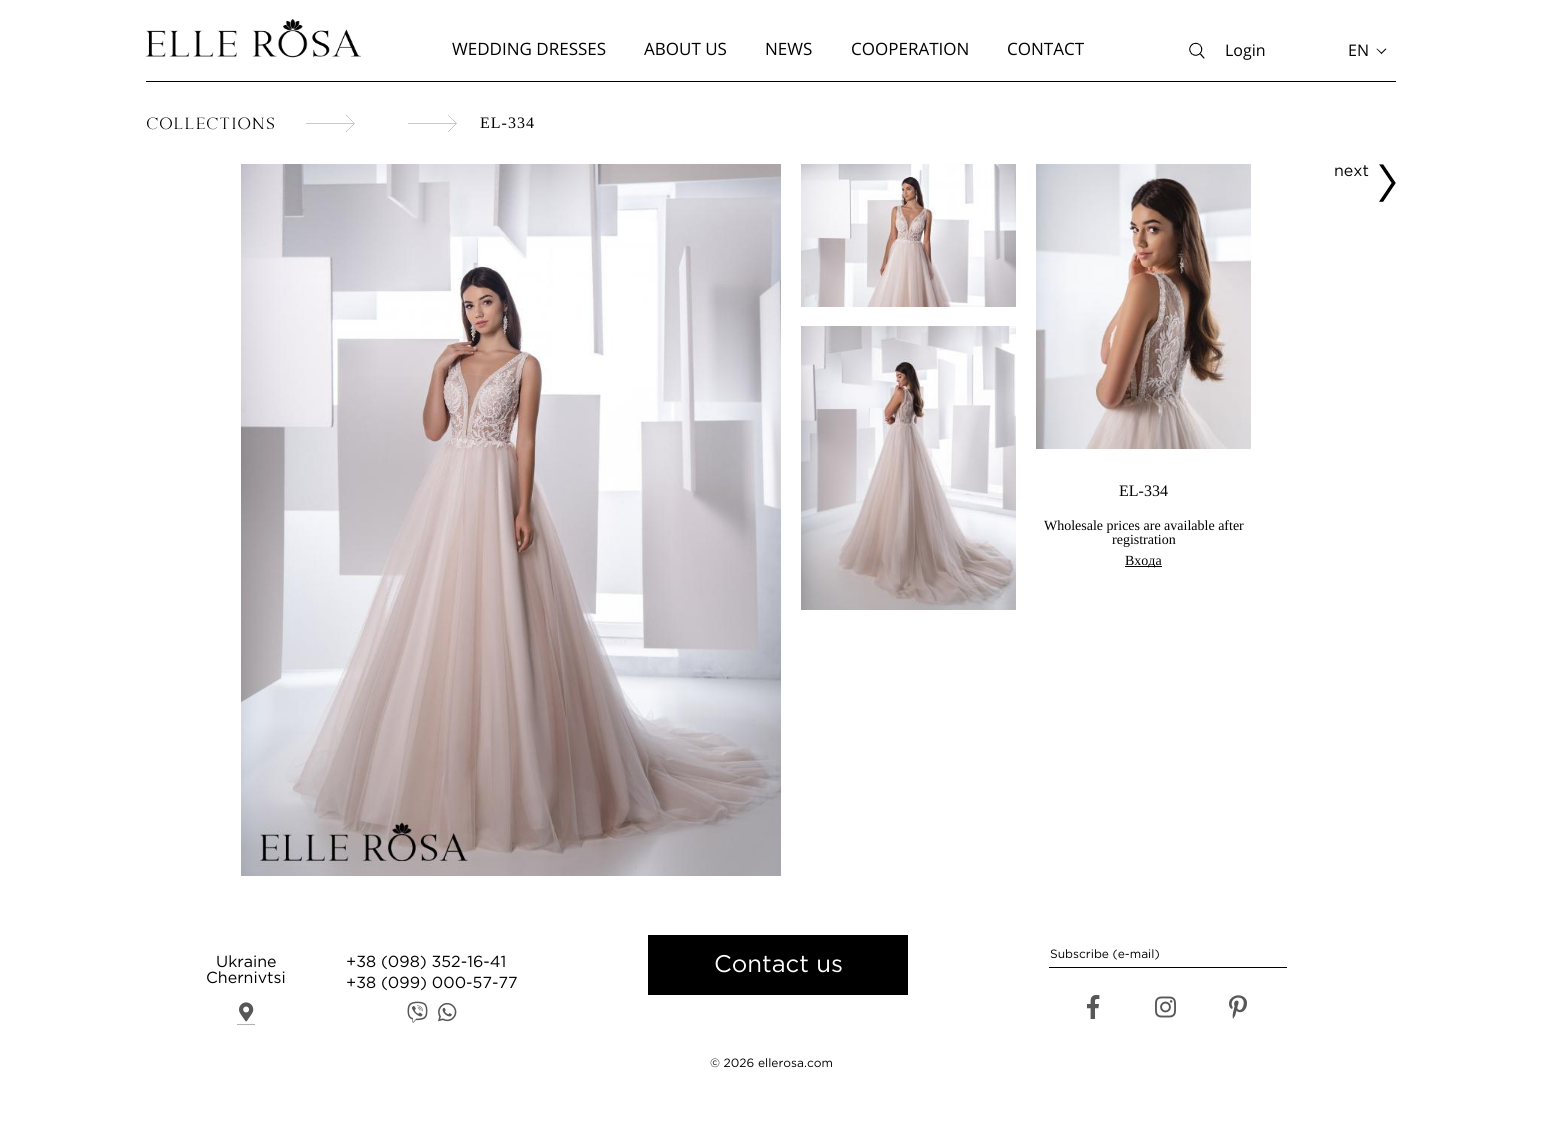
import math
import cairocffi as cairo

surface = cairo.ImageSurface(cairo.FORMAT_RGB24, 1542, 1133)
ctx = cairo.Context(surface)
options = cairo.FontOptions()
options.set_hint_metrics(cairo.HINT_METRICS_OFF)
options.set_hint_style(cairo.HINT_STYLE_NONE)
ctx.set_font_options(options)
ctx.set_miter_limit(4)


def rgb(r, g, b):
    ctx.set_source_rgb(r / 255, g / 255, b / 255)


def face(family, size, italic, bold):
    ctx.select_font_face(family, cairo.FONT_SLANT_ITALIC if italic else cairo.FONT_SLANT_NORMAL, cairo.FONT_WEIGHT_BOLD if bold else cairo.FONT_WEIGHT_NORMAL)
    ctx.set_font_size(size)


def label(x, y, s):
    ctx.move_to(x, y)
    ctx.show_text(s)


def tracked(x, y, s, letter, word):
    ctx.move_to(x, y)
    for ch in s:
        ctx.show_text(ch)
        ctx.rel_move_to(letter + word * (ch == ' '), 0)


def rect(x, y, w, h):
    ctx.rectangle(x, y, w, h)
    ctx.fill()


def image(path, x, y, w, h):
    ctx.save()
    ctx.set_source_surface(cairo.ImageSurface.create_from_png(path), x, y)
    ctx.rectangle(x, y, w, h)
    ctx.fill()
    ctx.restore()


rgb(255, 255, 255)
ctx.paint()
image('image0.png', 146, 19, 215, 39)
face('Open Sans', 17, 0, 0)
rgb(0, 0, 0)
label(452, 55, 'WEDDING DRESSES')
label(644, 55, 'ABOUT US')
label(765, 55, 'NEWS')
label(851, 55, 'COOPERATION')
label(1007, 55, 'CONTACT')
image('image1.png', 1189, 42, 16, 17)
face('Open Sans', 16, 0, 0)
label(1225, 56, 'Login')
label(1348, 56, 'EN')
ctx.new_path()
ctx.move_to(1385.5, 48.5)
ctx.line_to(1386.5, 49)
ctx.line_to(1381.5, 54)
ctx.line_to(1381, 53)
ctx.close_path()
ctx.fill()
ctx.new_path()
ctx.move_to(1377, 48.5)
ctx.line_to(1382, 53)
ctx.line_to(1381.5, 54)
ctx.line_to(1376.5, 49)
ctx.close_path()
ctx.fill()
rect(146, 81, 1250, 1)
face('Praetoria', 20, 0, 0)
label(146, 129, 'COLLECTIONS')
image('image2.png', 306, 115, 49, 17)
image('image2.png', 408, 115, 49, 17)
face('Liberation Serif', 16, 0, 0)
tracked(480, 128, 'EL-334', 1, 0)
face('Gotham', 16, 0, 0)
label(1334, 176, 'next')
image('image3.png', 1379, 164, 17, 38)
image('image4.png', 241, 164, 540, 712)
image('image5.png', 801, 164, 215, 143)
image('image6.png', 801, 326, 215, 284)
image('image7.png', 1036, 164, 215, 285)
face('Liberation Serif', 16, 0, 0)
label(1119, 496, 'EL-334')
face('Liberation Serif', 14, 0, 0)
label(1044, 530, 'Wholesale prices are available after')
label(1112, 544, 'registration')
rect(1125, 566, 37, 1)
label(1125, 565, 'Входа')
face('Gotham', 16, 0, 0)
label(216, 967, 'Ukraine')
label(206, 983, 'Chernivtsi')
image('image8.png', 239, 1002, 15, 20)
face('Liberation Serif', 8, 0, 0)
label(237, 1025, '.........')
face('Gotham', 16, 0, 0)
label(346, 967, '+38 (098) 352-16-41')
label(346, 988, '+38 (099) 000-57-77')
image('image9.png', 407, 1001, 21, 22)
image('image10.png', 438, 1002, 19, 20)
rect(648, 935, 260, 60)
face('Gotham', 24, 0, 0)
rgb(255, 255, 255)
label(714, 972, 'Contact us')
face('Gotham', 12, 0, 0)
rgb(0, 0, 0)
label(1050, 958, 'Subscribe (e-mail)')
rect(1049, 967, 238, 1)
image('image11.png', 1087, 995, 13, 24)
image('image12.png', 1155, 996, 21, 22)
image('image13.png', 1229, 995, 18, 24)
label(710, 1067, '© 2026 ellerosa.com')
surface.write_to_png('render.png')
